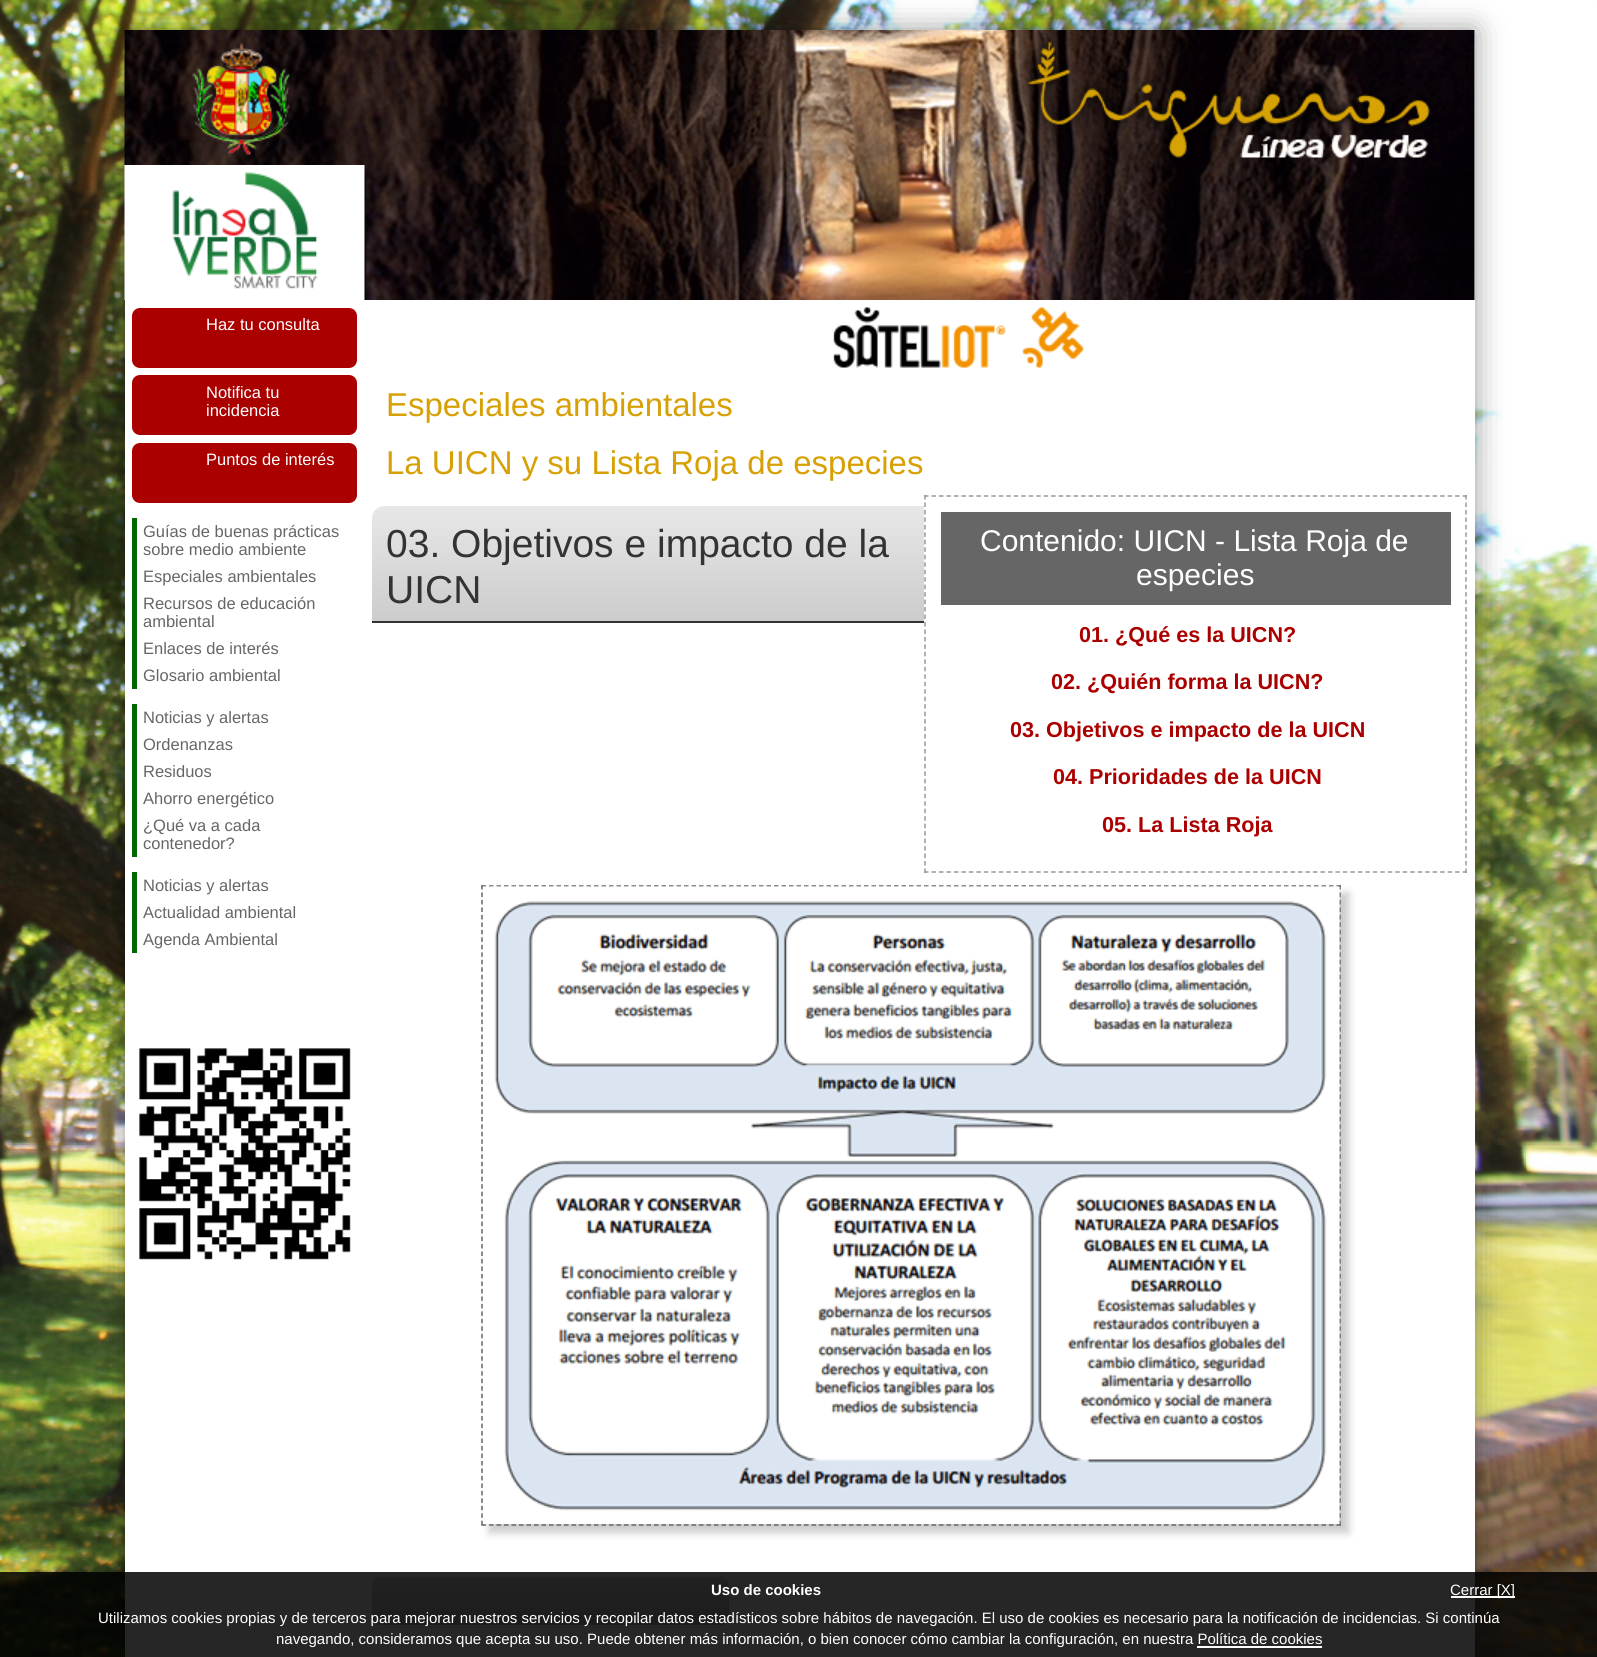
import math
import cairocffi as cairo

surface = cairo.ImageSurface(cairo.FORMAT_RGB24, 1597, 1657)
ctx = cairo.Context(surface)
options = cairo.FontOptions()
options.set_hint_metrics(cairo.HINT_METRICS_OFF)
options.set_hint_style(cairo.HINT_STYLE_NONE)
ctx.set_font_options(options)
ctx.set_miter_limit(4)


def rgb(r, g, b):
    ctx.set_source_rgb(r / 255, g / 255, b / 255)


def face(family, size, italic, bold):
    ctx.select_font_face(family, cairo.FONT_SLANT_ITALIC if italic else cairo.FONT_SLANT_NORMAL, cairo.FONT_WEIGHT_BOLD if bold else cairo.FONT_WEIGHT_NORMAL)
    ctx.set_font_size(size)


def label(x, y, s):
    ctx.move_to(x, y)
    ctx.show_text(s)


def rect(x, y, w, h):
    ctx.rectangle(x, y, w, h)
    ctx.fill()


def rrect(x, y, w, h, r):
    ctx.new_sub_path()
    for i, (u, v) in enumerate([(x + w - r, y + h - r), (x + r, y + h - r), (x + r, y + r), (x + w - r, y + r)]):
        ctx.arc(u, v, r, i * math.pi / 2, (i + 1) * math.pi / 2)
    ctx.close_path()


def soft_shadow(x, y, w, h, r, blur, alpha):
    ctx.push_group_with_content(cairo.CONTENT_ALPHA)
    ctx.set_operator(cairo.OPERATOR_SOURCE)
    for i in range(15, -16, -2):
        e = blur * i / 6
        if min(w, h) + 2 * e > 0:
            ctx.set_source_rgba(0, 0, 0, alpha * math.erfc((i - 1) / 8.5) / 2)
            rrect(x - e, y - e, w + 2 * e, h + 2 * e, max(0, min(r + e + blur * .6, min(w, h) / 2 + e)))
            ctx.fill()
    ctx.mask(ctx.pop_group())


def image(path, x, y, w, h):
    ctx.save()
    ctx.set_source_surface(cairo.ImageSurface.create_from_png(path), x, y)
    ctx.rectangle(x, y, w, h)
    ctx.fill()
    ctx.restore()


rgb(255, 255, 255)
ctx.paint()
image('image0.png', 0, 0, 1597, 1657)
rgb(0, 0, 0)
soft_shadow(125, 30, 1350, 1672, 0, 15, 0.4)
rgb(255, 255, 255)
rect(125, 30, 1350, 1627)
image('image1.png', 124, 30, 1351, 135)
image('image2.png', 124, 165, 194, 135)
image('image3.png', 364, 165, 1111, 135)
image('image4.png', 833, 307, 251, 61)
rgb(171, 0, 0)
rrect(132, 308, 225, 60, 8)
ctx.fill()
face('Liberation Sans', 16.5, 0, 0)
rgb(255, 255, 255)
label(206, 330, 'Haz tu consulta')
rgb(171, 0, 0)
rrect(132, 375, 225, 60, 8)
ctx.fill()
rgb(255, 255, 255)
label(206, 398, 'Notifica tu')
label(206, 416, 'incidencia')
rgb(171, 0, 0)
rrect(132, 443, 225, 60, 8)
ctx.fill()
rgb(255, 255, 255)
label(206, 465, 'Puntos de interés')
rgb(0, 102, 0)
rect(132, 518, 5, 171)
rgb(102, 102, 102)
label(143, 537, 'Guías de buenas prácticas')
label(143, 555, 'sobre medio ambiente')
label(143, 582, 'Especiales ambientales')
label(143, 609, 'Recursos de educación')
label(143, 627, 'ambiental')
label(143, 654, 'Enlaces de interés')
label(143, 681, 'Glosario ambiental')
rgb(0, 102, 0)
rect(132, 704, 5, 153)
rgb(102, 102, 102)
label(143, 723, 'Noticias y alertas')
label(143, 750, 'Ordenanzas')
label(143, 777, 'Residuos')
label(143, 804, 'Ahorro energético')
label(143, 831, '¿Qué va a cada')
label(143, 849, 'contenedor?')
rgb(0, 102, 0)
rect(132, 872, 5, 81)
rgb(102, 102, 102)
label(143, 891, 'Noticias y alertas')
label(143, 918, 'Actualidad ambiental')
label(143, 945, 'Agenda Ambiental')
image('image5.png', 139, 1048, 212, 212)
face('Liberation Sans', 33, 0, 0)
rgb(215, 161, 5)
label(386, 416, 'Especiales ambientales')
label(386, 474, 'La UICN y su Lista Roja de especies')
gradient = cairo.LinearGradient(920, 505, 920, 621)
gradient.add_color_stop_rgba(0, 0.91, 0.91, 0.91, 1)
gradient.add_color_stop_rgba(1, 0.8, 0.8, 0.8, 1)
ctx.set_source(gradient)
ctx.new_path()
ctx.move_to(384, 506)
ctx.line_to(1455, 506)
ctx.curve_to(1461.5, 506, 1467, 511.5, 1467, 518)
ctx.line_to(1467, 621)
ctx.line_to(372, 621)
ctx.line_to(372, 518)
ctx.curve_to(372, 511.5, 377.5, 506, 384, 506)
ctx.close_path()
ctx.fill()
rgb(51, 51, 51)
rect(372, 621, 552, 2)
face('Liberation Sans', 39, 0, 0)
label(386, 557, '03. Objetivos e impacto de la')
label(386, 603, 'UICN')
rgb(255, 255, 255)
rect(924, 506, 543, 115)
ctx.new_path()
ctx.move_to(924, 496)
ctx.line_to(1467, 496)
rgb(153, 153, 153)
ctx.set_line_width(1.5)
ctx.set_dash([4.5, 2.98])
ctx.stroke()
ctx.new_path()
ctx.move_to(1466, 495)
ctx.line_to(1466, 873)
ctx.set_dash([4.5, 2.97])
ctx.stroke()
ctx.new_path()
ctx.move_to(924, 872)
ctx.line_to(1467, 872)
ctx.set_dash([4.5, 2.98])
ctx.stroke()
ctx.new_path()
ctx.move_to(925, 495)
ctx.line_to(925, 873)
ctx.set_dash([4.5, 2.97])
ctx.stroke()
rgb(102, 102, 102)
rect(941, 512, 510, 93)
face('Liberation Sans', 30, 0, 0)
rgb(255, 255, 255)
label(980, 551, 'Contenido: UICN - Lista Roja de')
label(1136, 585, 'especies')
face('Liberation Sans', 21.6, 0, 1)
rgb(171, 0, 0)
label(1079, 642, '01. ¿Qué es la UICN?')
label(1051, 689, '02. ¿Quién forma la UICN?')
label(1010, 737, '03. Objetivos e impacto de la UICN')
label(1053, 784, '04. Prioridades de la UICN')
label(1102, 832, '05. La Lista Roja')
rgb(204, 204, 204)
soft_shadow(489, 893, 860, 640, 0, 4, 1)
ctx.new_path()
ctx.move_to(481.5, 886)
ctx.line_to(1341, 886)
rgb(102, 102, 102)
ctx.set_dash([4.5, 3])
ctx.stroke()
ctx.new_path()
ctx.move_to(1340, 885)
ctx.line_to(1340, 1525.5)
ctx.set_dash([4.5, 2.98])
ctx.stroke()
ctx.new_path()
ctx.move_to(481.5, 1525)
ctx.line_to(1341, 1525)
ctx.set_dash([4.5, 3])
ctx.stroke()
ctx.new_path()
ctx.move_to(482, 885)
ctx.line_to(482, 1525.5)
ctx.set_dash([4.5, 2.98])
ctx.stroke()
image('image6.png', 483, 886, 857, 638)
gradient = cairo.LinearGradient(551, 1577, 551, 1625)
gradient.add_color_stop_rgba(0, 0.871, 0.871, 0.871, 1)
gradient.add_color_stop_rgba(1, 0.737, 0.737, 0.737, 1)
ctx.set_source(gradient)
rrect(372, 1577, 357, 48, 8)
ctx.fill()
ctx.set_source_rgba(0, 0, 0, 0.85)
rect(0, 1572, 1597, 85)
face('Liberation Sans', 15, 0, 1)
rgb(255, 255, 255)
label(711, 1595, 'Uso de cookies')
rect(1451, 1596, 64, 2)
face('Liberation Sans', 15, 0, 0)
label(1450, 1595, 'Cerrar [X]')
label(98, 1623, 'Utilizamos cookies propias y de terceros para mejorar nuestros servicios y recopilar datos estadísticos sobre hábitos de navegación. El uso de cookies es necesario para la notificación de incidencias. Si continúa')
label(276, 1644, 'navegando, consideramos que acepta su uso. Puede obtener más información, o bien conocer cómo cambiar la configuración, en nuestra Política de cookies')
rect(1197, 1646, 125, 2)
surface.write_to_png('render.png')
